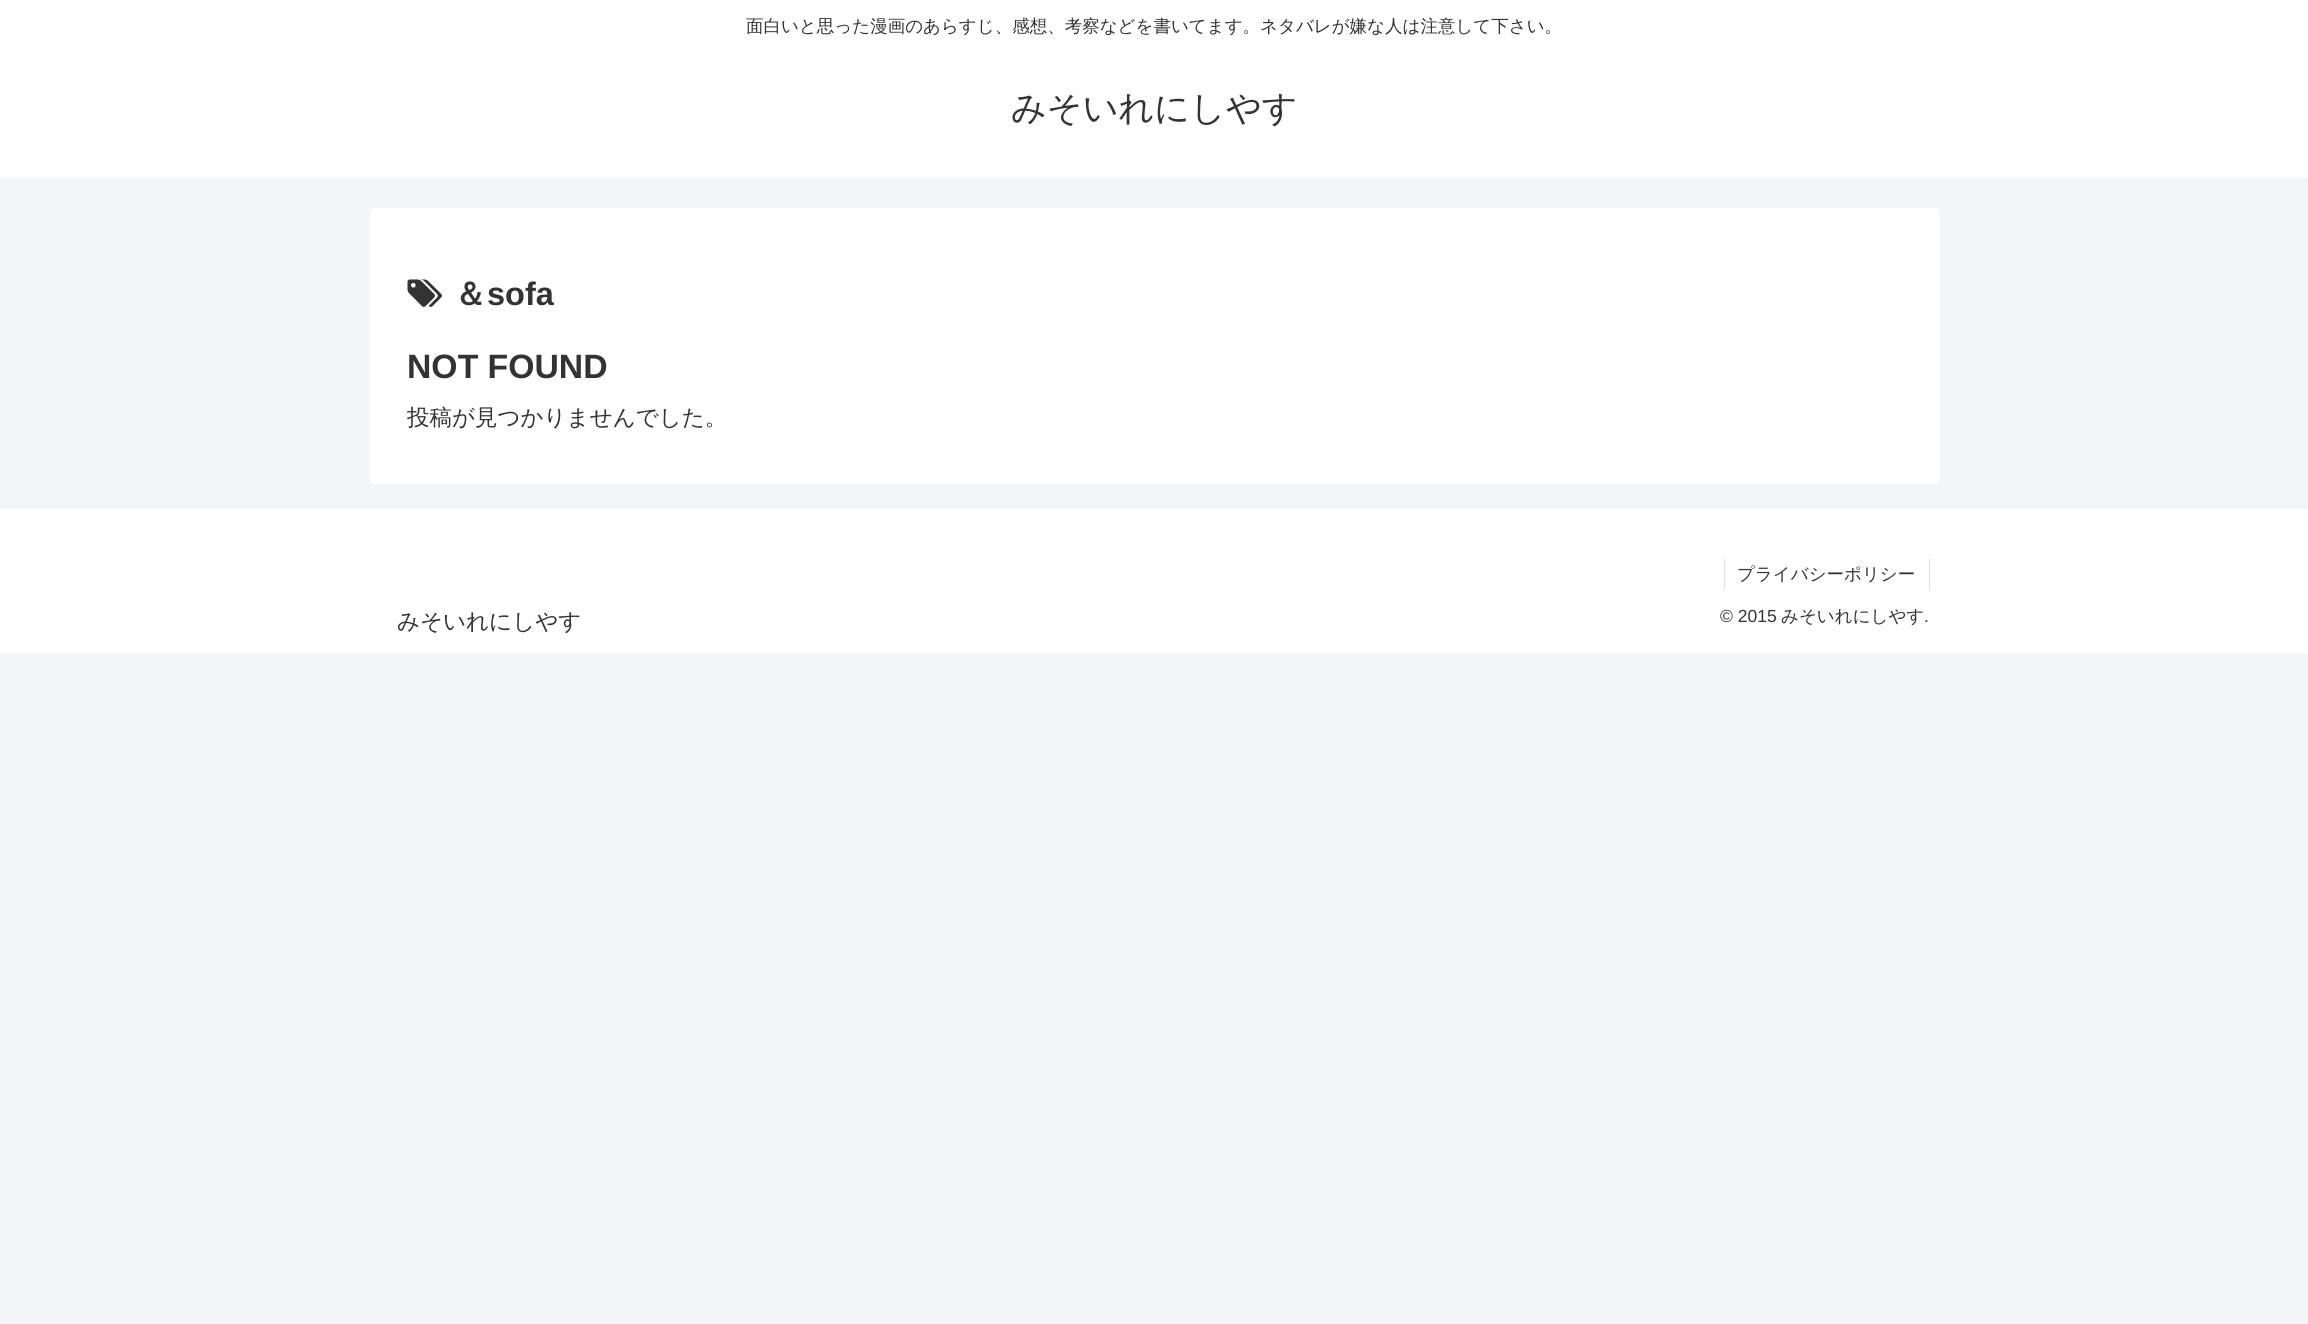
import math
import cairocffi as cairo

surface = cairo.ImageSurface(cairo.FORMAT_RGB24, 2308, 1324)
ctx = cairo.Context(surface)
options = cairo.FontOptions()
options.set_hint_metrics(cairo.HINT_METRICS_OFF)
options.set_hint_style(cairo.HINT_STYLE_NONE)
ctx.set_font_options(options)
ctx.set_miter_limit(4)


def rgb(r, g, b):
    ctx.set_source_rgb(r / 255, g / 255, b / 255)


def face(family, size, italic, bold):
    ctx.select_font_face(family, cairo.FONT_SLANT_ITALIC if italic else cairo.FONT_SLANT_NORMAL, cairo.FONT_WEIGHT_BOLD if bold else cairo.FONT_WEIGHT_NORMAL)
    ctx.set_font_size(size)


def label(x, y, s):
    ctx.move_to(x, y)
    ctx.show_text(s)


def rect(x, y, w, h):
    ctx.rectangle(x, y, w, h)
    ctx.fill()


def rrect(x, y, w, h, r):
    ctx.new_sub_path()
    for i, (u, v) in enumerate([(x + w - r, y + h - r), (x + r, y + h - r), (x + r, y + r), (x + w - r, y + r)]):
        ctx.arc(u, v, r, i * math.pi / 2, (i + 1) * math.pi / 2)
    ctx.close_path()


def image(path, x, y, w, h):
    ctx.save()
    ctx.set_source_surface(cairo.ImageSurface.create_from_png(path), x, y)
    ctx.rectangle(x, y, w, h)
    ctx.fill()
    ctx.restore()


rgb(244, 245, 247)
ctx.paint()
rgb(255, 255, 255)
rect(0, 0, 2308, 178)
face('WenQuanYi Zen Hei Medium', 17.5, 0, 0)
rgb(51, 51, 51)
label(746, 32, '面白いと思った漫画のあらすじ、感想、考察などを書いてます。ネタバレが嫌な人は注意して下さい。')
face('WenQuanYi Zen Hei Medium', 35, 0, 0)
label(1011, 120, 'みそいれにしやす')
rgb(255, 255, 255)
rrect(370, 208, 1570, 276, 5)
ctx.fill()
image('image0.png', 407, 279, 35, 28)
face('WenQuanYi Zen Hei', 32.5, 0, 1)
rgb(51, 51, 51)
label(454, 305, '＆')
face('Liberation Sans', 32.5, 0, 1)
label(487, 305, 'sofa')
face('Liberation Sans', 33.75, 0, 1)
label(407, 378, 'NOT FOUND')
face('WenQuanYi Zen Hei Medium', 22.5, 0, 0)
label(407, 425, '投稿が見つかりませんでした。')
rgb(255, 255, 255)
rect(0, 509, 2308, 144)
rgb(51, 51, 51)
label(397, 629, 'みそいれにしやす')
rgb(221, 221, 221)
rect(1929, 559, 1, 31)
rect(1724, 559, 1, 31)
face('WenQuanYi Zen Hei Medium', 17.5, 0, 0)
rgb(51, 51, 51)
label(1737, 580, 'プライバシーポリシー')
face('Liberation Sans', 17.5, 0, 0)
label(1720, 622, '© 2015')
face('WenQuanYi Zen Hei Medium', 17.5, 0, 0)
label(1781, 622, 'みそいれにしやす')
face('Liberation Sans', 17.5, 0, 0)
label(1924, 622, '.')
surface.write_to_png('render.png')
